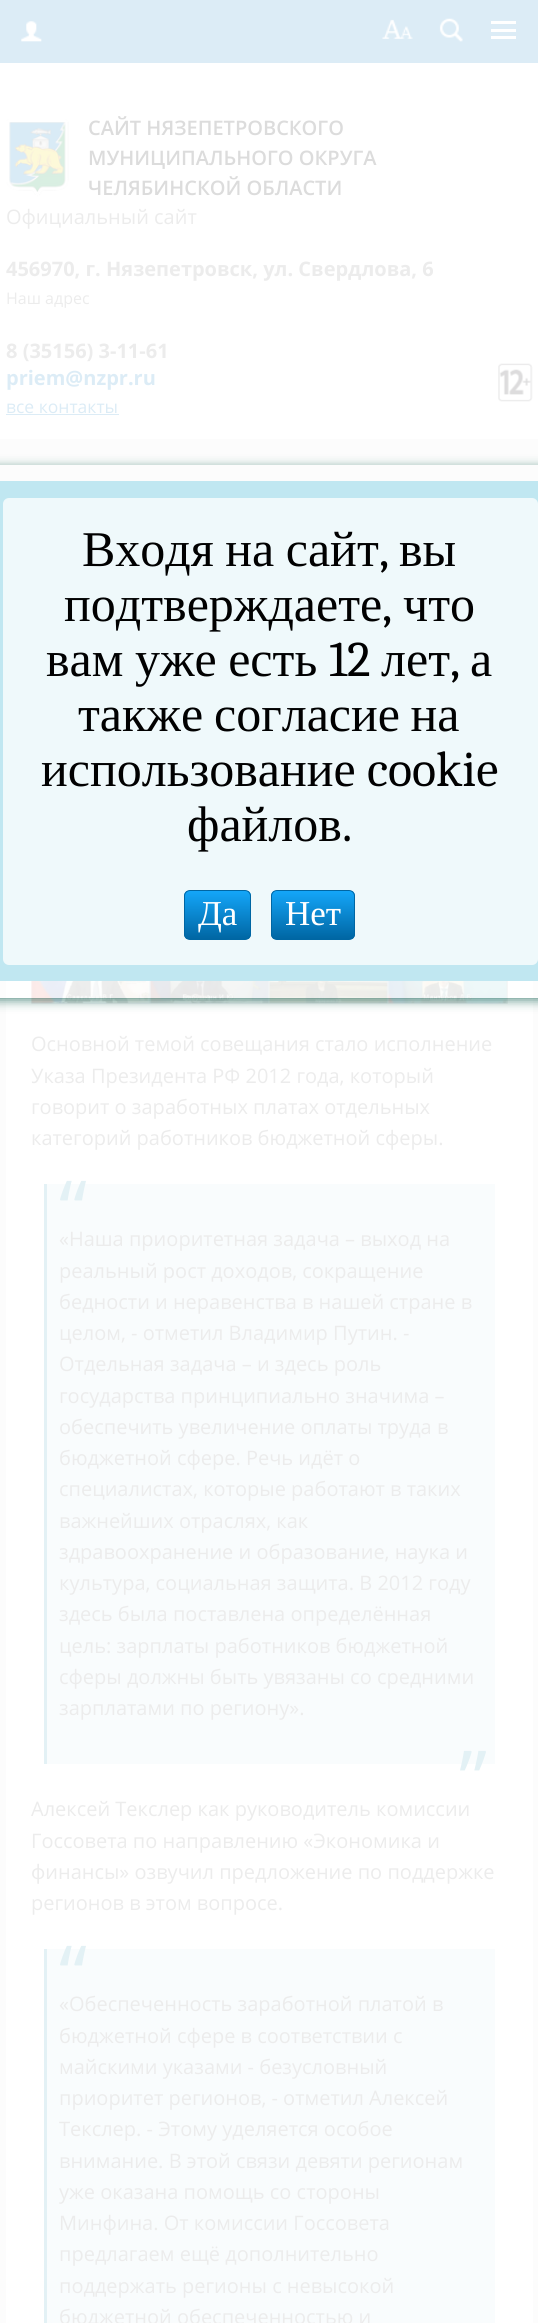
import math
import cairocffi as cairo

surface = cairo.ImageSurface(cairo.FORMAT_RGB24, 538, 2323)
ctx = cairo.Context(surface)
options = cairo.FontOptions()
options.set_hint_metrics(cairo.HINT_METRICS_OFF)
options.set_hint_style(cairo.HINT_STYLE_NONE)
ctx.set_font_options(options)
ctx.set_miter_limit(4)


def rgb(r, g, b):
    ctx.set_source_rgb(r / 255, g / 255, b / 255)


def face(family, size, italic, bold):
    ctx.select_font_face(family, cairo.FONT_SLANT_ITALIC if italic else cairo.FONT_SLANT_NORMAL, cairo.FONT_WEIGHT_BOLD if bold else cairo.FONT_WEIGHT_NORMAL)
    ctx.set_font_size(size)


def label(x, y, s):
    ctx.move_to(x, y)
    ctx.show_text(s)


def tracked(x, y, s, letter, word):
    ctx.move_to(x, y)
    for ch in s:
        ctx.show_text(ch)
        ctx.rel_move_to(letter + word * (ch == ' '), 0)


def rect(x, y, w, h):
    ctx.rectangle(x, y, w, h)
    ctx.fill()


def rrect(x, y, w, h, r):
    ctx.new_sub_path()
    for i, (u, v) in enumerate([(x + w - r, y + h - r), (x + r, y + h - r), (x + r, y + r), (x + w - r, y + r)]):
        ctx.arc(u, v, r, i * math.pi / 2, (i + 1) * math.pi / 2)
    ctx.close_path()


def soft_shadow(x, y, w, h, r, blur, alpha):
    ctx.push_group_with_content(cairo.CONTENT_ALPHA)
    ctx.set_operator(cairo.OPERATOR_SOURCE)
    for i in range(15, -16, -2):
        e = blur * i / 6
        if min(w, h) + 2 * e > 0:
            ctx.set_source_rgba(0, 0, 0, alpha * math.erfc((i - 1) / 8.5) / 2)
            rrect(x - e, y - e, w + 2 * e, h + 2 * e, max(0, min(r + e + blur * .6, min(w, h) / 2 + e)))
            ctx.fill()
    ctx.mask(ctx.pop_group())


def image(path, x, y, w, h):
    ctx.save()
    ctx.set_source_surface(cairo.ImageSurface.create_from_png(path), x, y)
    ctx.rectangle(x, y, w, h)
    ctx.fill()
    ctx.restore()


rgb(252, 252, 252)
ctx.paint()
rgb(220, 236, 246)
rect(0, 0, 538, 63)
rgb(255, 255, 255)
rect(491, 29, 25, 3)
rect(491, 21, 25, 3)
rect(491, 36, 25, 3)
image('image0.png', 21, 21, 21, 21)
image('image1.png', 382, 19, 31, 20)
image('image2.png', 439, 18, 24, 24)
rect(0, 63, 538, 376)
image('image3.png', 6, 119, 63, 78)
face('Open Sans SemiBold', 20, 0, 0)
rgb(220, 220, 220)
label(88, 135, 'САЙТ НЯЗЕПЕТРОВСКОГО')
label(88, 165, 'МУНИЦИПАЛЬНОГО ОКРУГА')
label(88, 195, 'ЧЕЛЯБИНСКОЙ ОБЛАСТИ')
face('Open Sans', 20, 0, 0)
rgb(236, 236, 236)
label(6, 224, 'Официальный сайт')
face('Open Sans', 20, 0, 1)
label(6, 276, '456970, г. Нязепетровск, ул. Свердлова, 6')
face('Open Sans', 16, 0, 0)
label(6, 304, 'Наш адрес')
face('Open Sans', 20, 0, 1)
label(6, 358, '8 (35156) 3-11-61')
rgb(220, 236, 246)
label(6, 385, 'priem@nzpr.ru')
image('image4.png', 498, 363, 35, 39)
face('Open Sans', 17.5, 0, 0)
label(6, 413, 'все контакты')
rect(6, 414, 113, 1)
rgb(255, 255, 255)
rect(6, 981, 527, 1342)
image('image5.png', 31, 981, 477, 23)
face('Open Sans', 20, 0, 0)
rgb(236, 236, 236)
label(31, 1051, 'Основной темой совещания стало исполнение')
label(31, 1083, 'Указа Президента РФ 2012 года, который')
label(31, 1114, 'говорит о заработных платах отдельных')
label(31, 1145, 'категорий работников бюджетной сферы.')
rgb(249, 252, 253)
rect(47, 1184, 448, 580)
rgb(227, 241, 245)
rect(44, 1184, 3, 580)
face('Open Sans', 80, 0, 0)
label(59, 1238, '“')
face('Open Sans', 20, 0, 0)
rgb(236, 236, 236)
label(59, 1246, '«Наша приоритетная задача – выход на')
label(59, 1278, 'реальный рост доходов, сокращение')
label(59, 1309, 'бедности и неравенства в нашей стране в')
label(59, 1340, 'целом, - отметил Владимир Путин. -')
label(59, 1371, 'Отдельная задача – и здесь роль')
label(59, 1403, 'государства принципиально значима –')
label(59, 1434, 'обеспечить увеличение оплаты труда в')
label(59, 1465, 'бюджетной сфере. Речь идёт о')
label(59, 1496, 'специалистах, которые работают в таких')
label(59, 1528, 'важнейших отраслях, как')
label(59, 1559, 'здравоохранение и образование, наука и')
label(59, 1590, 'культура, социальная защита. В 2012 году')
label(59, 1621, 'здесь была поставлена определённая')
label(59, 1653, 'цель: зарплаты работников бюджетной')
label(59, 1684, 'сферы должны быть увязаны со средними')
label(59, 1715, 'зарплатами по региону».')
face('Open Sans', 80, 0, 0)
rgb(227, 241, 245)
label(459, 1808, '”')
face('Open Sans', 20, 0, 0)
rgb(236, 236, 236)
label(31, 1816, 'Алексей Текслер как руководитель комиссии')
label(31, 1848, 'Госсовета по направлению «Экономика и')
label(31, 1879, 'финансы» озвучил предложение по поддержке')
label(31, 1910, 'регионов в этом вопросе.')
rgb(249, 252, 253)
rect(47, 1949, 448, 374)
rgb(227, 241, 245)
rect(44, 1949, 3, 374)
face('Open Sans', 80, 0, 0)
label(59, 2003, '“')
face('Open Sans', 20, 0, 0)
rgb(236, 236, 236)
label(59, 2011, '«Обеспеченность заработной платой в')
label(59, 2043, 'бюджетной сфере в соответствии с')
label(59, 2074, 'майскими указами - безусловный')
label(59, 2105, 'приоритет регионов, - отметил Алексей')
label(59, 2136, 'Текслер. - Этому уделяется особое')
label(59, 2168, 'внимание. В этой связи девяти регионам')
label(59, 2199, 'уже оказана помощь со стороны')
label(59, 2230, 'Минфина. От комиссии Госсовета')
label(59, 2261, 'предлагаем ещё дополнительно')
label(59, 2293, 'поддержать регионы с невысокой')
label(59, 2324, 'бюджетной обеспеченностью и')
ctx.save()
ctx.set_fill_rule(cairo.FILL_RULE_EVEN_ODD)
ctx.new_path()
ctx.move_to(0, 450)
ctx.line_to(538, 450)
ctx.line_to(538, 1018)
ctx.line_to(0, 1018)
ctx.close_path()
ctx.move_to(-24, 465)
ctx.line_to(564, 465)
ctx.curve_to(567.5, 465, 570, 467.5, 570, 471)
ctx.line_to(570, 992)
ctx.curve_to(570, 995.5, 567.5, 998, 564, 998)
ctx.line_to(-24, 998)
ctx.curve_to(-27.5, 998, -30, 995.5, -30, 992)
ctx.line_to(-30, 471)
ctx.curve_to(-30, 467.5, -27.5, 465, -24, 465)
ctx.close_path()
ctx.clip()
rgb(12, 92, 76)
soft_shadow(-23, 468, 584, 532, 6, 5.5, 0.7)
ctx.restore()
ctx.set_source_rgba(1, 1, 1, 0.39)
rect(0, 981, 538, 17)
rgb(192, 231, 241)
rect(0, 481, 538, 500)
rgb(239, 249, 251)
rrect(3, 498, 535, 467, 6)
ctx.fill()
face('Liberation Serif', 50, 0, 0)
rgb(1, 1, 1)
tracked(82, 566, 'Входя на сайт', 0, -1)
face('Caladea', 50, 0, 0)
label(379, 566, ',')
face('Liberation Serif', 50, 0, 0)
label(399, 566, 'вы')
label(64, 621, 'подтверждаете')
face('Caladea', 50, 0, 0)
label(382, 621, ',')
face('Liberation Serif', 50, 0, 0)
label(403, 621, 'что')
tracked(46, 676, 'вам уже есть', 0, -1)
face('Caladea', 50, 0, 0)
label(329, 676, '12')
face('Liberation Serif', 50, 0, 0)
label(381, 676, 'лет')
face('Caladea', 50, 0, 0)
label(450, 676, ',')
face('Liberation Serif', 50, 0, 0)
label(470, 676, 'а')
label(78, 731, 'также')
tracked(214, 731, 'согласие на', 0, -2)
label(41, 786, 'использование')
face('Caladea', 50, 0, 0)
label(367, 786, 'cookie')
face('Liberation Serif', 50, 0, 0)
label(187, 841, 'файлов')
face('Caladea', 50, 0, 0)
label(342, 841, '.')
ctx.save()
rrect(184, 890, 67, 50, 6)
ctx.clip()
gradient = cairo.LinearGradient(218, 891, 218, 939)
gradient.add_color_stop_rgba(0, 0.078, 0.651, 0.976, 1)
gradient.add_color_stop_rgba(1, 0, 0.4, 0.639, 1)
ctx.set_source(gradient)
rect(184, 891, 67, 48)
ctx.restore()
rrect(184.5, 890.5, 66, 49, 5.5)
rgb(0, 102, 163)
ctx.set_line_width(1)
ctx.stroke()
face('Liberation Serif', 35, 0, 0)
rgb(255, 255, 255)
label(198, 925, 'Да')
ctx.save()
rrect(271, 890, 84, 50, 6)
ctx.clip()
gradient = cairo.LinearGradient(313, 891, 313, 939)
gradient.add_color_stop_rgba(0, 0.078, 0.651, 0.976, 1)
gradient.add_color_stop_rgba(1, 0, 0.4, 0.639, 1)
ctx.set_source(gradient)
rect(271, 891, 84, 48)
ctx.restore()
rrect(271.5, 890.5, 83, 49, 5.5)
rgb(0, 102, 163)
ctx.stroke()
rgb(255, 255, 255)
label(285, 925, 'Нет')
surface.write_to_png('render.png')
